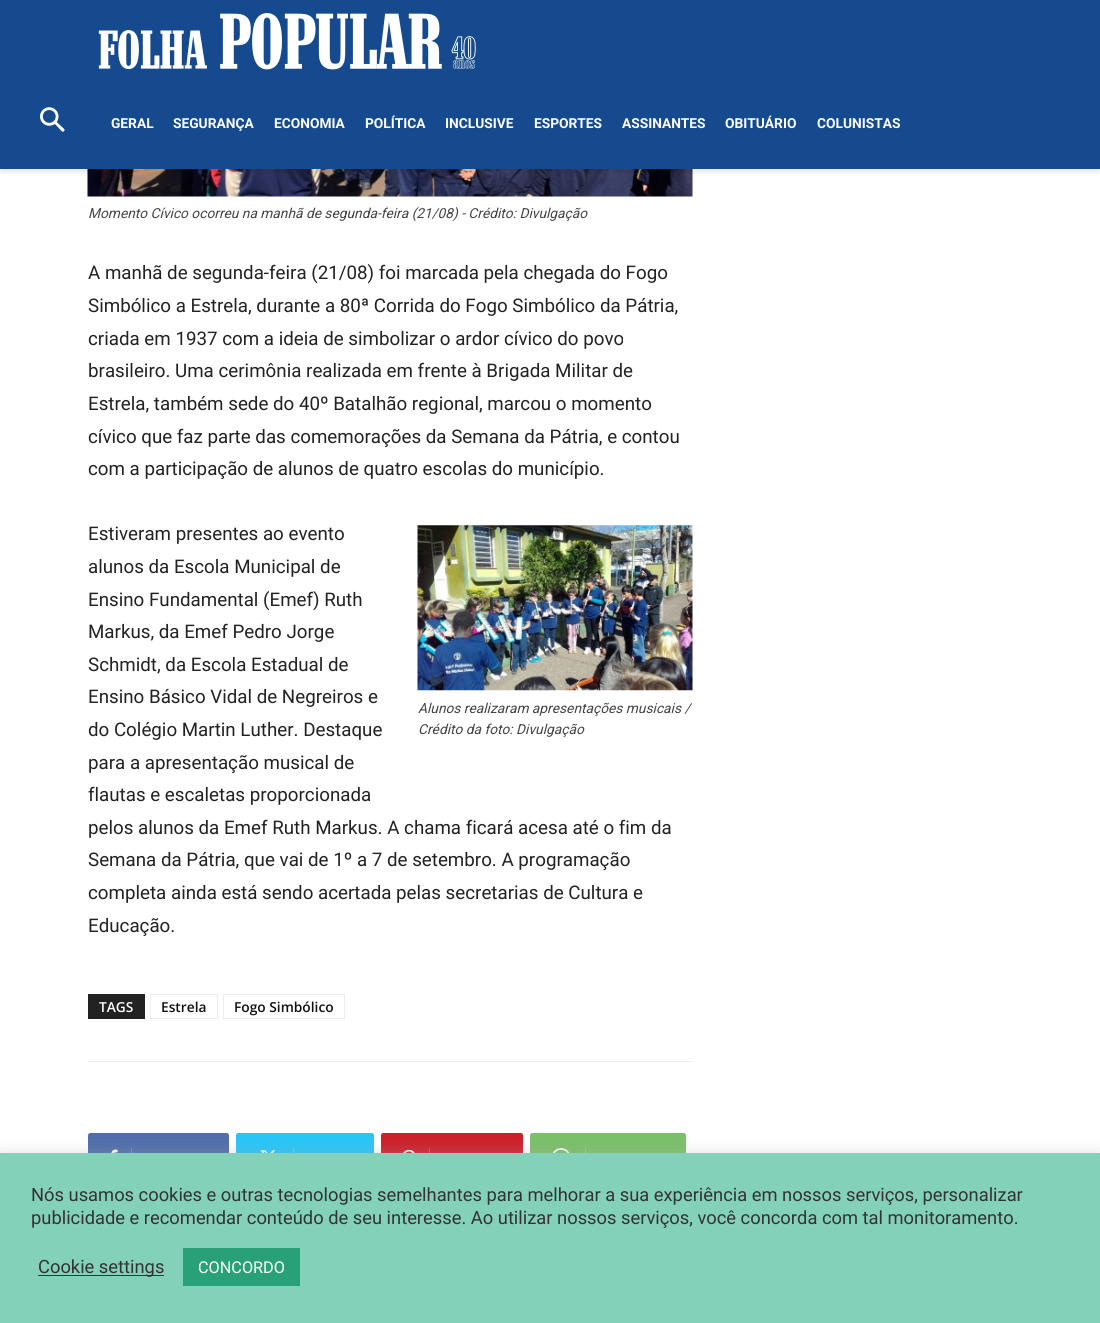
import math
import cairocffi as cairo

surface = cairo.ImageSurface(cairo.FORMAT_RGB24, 1100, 1323)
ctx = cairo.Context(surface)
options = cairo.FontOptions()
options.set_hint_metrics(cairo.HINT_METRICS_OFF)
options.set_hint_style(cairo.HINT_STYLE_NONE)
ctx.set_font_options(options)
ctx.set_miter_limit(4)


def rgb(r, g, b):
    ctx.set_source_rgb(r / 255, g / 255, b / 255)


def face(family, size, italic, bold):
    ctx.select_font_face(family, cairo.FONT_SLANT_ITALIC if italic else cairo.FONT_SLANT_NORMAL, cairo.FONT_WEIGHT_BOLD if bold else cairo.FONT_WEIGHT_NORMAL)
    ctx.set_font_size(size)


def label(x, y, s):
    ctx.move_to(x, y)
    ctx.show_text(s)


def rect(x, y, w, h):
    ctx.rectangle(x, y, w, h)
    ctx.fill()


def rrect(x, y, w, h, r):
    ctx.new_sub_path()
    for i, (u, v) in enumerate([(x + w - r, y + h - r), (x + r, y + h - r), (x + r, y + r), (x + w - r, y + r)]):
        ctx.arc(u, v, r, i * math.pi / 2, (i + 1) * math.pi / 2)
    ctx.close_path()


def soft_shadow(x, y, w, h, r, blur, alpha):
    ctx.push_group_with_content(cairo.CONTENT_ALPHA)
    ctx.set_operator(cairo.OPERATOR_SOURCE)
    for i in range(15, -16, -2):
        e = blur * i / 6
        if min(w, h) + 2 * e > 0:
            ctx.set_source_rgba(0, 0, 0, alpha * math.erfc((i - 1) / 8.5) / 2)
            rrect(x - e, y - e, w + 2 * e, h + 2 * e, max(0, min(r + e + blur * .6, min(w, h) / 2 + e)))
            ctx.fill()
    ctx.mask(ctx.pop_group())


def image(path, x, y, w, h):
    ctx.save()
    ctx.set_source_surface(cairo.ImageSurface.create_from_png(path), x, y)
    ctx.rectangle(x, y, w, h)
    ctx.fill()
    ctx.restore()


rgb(255, 255, 255)
ctx.paint()
rgb(21, 74, 143)
rect(0, 0, 1100, 169)
image('image1.png', 40, 107, 25, 25)
image('image2.png', 87, 169, 606, 28)
ctx.save()
ctx.rectangle(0, 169, 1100, 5)
ctx.clip()
rgb(0, 0, 0)
soft_shadow(0, 4, 1100, 169, 0, 2, 0.08)
ctx.restore()
image('image0.png', 98, 13, 378, 57)
face('Roboto', 13.75, 0, 1)
rgb(255, 255, 255)
label(111, 128, 'GERAL')
label(173, 128, 'SEGURANÇA')
label(274, 128, 'ECONOMIA')
label(365, 128, 'POLÍTICA')
label(445, 128, 'INCLUSIVE')
label(534, 128, 'ESPORTES')
label(622, 128, 'ASSINANTES')
label(725, 128, 'OBITUÁRIO')
label(817, 128, 'COLUNISTAS')
face('Roboto', 13.75, 1, 0)
rgb(68, 68, 68)
label(88, 218, 'Momento Cívico ocorreu na manhã de segunda-feira (21/08) - Crédito: Divulgação')
face('Roboto', 18.75, 0, 0)
rgb(34, 34, 34)
label(88, 279, 'A manhã de segunda-feira (21/08) foi marcada pela chegada do Fogo')
label(88, 312, 'Simbólico a Estrela, durante a 80ª Corrida do Fogo Simbólico da Pátria,')
label(88, 345, 'criada em 1937 com a ideia de simbolizar o ardor cívico do povo')
label(88, 377, 'brasileiro. Uma cerimônia realizada em frente à Brigada Militar de')
label(88, 410, 'Estrela, também sede do 40º Batalhão regional, marcou o momento')
label(88, 443, 'cívico que faz parte das comemorações da Semana da Pátria, e contou')
label(88, 475, 'com a participação de alunos de quatro escolas do município.')
label(88, 540, 'Estiveram presentes ao evento')
label(88, 573, 'alunos da Escola Municipal de')
label(88, 606, 'Ensino Fundamental (Emef) Ruth')
label(88, 638, 'Markus, da Emef Pedro Jorge')
label(88, 671, 'Schmidt, da Escola Estadual de')
label(88, 703, 'Ensino Básico Vidal de Negreiros e')
label(88, 736, 'do Colégio Martin Luther. Destaque')
label(88, 769, 'para a apresentação musical de')
label(88, 801, 'flautas e escaletas proporcionada')
label(88, 834, 'pelos alunos da Emef Ruth Markus. A chama ficará acesa até o fim da')
label(88, 866, 'Semana da Pátria, que vai de 1º a 7 de setembro. A programação')
label(88, 899, 'completa ainda está sendo acertada pelas secretarias de Cultura e')
label(88, 932, 'Educação.')
image('image3.png', 417, 525, 276, 166)
face('Roboto', 13.75, 1, 0)
rgb(68, 68, 68)
label(418, 713, 'Alunos realizaram apresentações musicais /')
label(418, 734, 'Crédito da foto: Divulgação')
rgb(34, 34, 34)
rect(88, 994, 57, 25)
face('Open Sans SemiBold', 13.75, 0, 0)
rgb(255, 255, 255)
label(99, 1012, 'TAGS')
ctx.rectangle(150.5, 994.5, 67, 24)
rgb(237, 237, 237)
ctx.set_line_width(1)
ctx.stroke()
rgb(17, 17, 17)
label(161, 1012, 'Estrela')
ctx.rectangle(223.5, 994.5, 121, 24)
rgb(237, 237, 237)
ctx.stroke()
rgb(17, 17, 17)
label(234, 1012, 'Fogo Simbólico')
rgb(237, 237, 237)
rect(88, 1061, 605, 1)
rgb(81, 110, 171)
ctx.new_path()
ctx.move_to(131, 1133)
ctx.line_to(226.5, 1133)
ctx.curve_to(228, 1133, 229, 1134, 229, 1135.5)
ctx.line_to(229, 1180.5)
ctx.curve_to(229, 1182, 228, 1183, 226.5, 1183)
ctx.line_to(131, 1183)
ctx.close_path()
ctx.fill()
ctx.new_path()
ctx.move_to(90.5, 1133)
ctx.line_to(139, 1133)
ctx.line_to(139, 1183)
ctx.line_to(90.5, 1183)
ctx.curve_to(89, 1183, 88, 1182, 88, 1180.5)
ctx.line_to(88, 1135.5)
ctx.curve_to(88, 1134, 89, 1133, 90.5, 1133)
ctx.close_path()
ctx.fill()
image('image4.png', 111, 1149, 7, 4)
rgb(116, 139, 188)
rect(131, 1148, 1, 5)
rgb(41, 197, 246)
ctx.new_path()
ctx.move_to(293, 1133)
ctx.line_to(371.5, 1133)
ctx.curve_to(373, 1133, 374, 1134, 374, 1135.5)
ctx.line_to(374, 1180.5)
ctx.curve_to(374, 1182, 373, 1183, 371.5, 1183)
ctx.line_to(293, 1183)
ctx.close_path()
ctx.fill()
ctx.new_path()
ctx.move_to(238.5, 1133)
ctx.line_to(300, 1133)
ctx.line_to(300, 1183)
ctx.line_to(238.5, 1183)
ctx.curve_to(237, 1183, 236, 1182, 236, 1180.5)
ctx.line_to(236, 1135.5)
ctx.curve_to(236, 1134, 237, 1133, 238.5, 1133)
ctx.close_path()
ctx.fill()
image('image5.png', 260, 1150, 15, 3)
rgb(84, 209, 248)
rect(293, 1148, 1, 5)
rgb(202, 33, 42)
ctx.new_path()
ctx.move_to(429, 1133)
ctx.line_to(520.5, 1133)
ctx.curve_to(522, 1133, 523, 1134, 523, 1135.5)
ctx.line_to(523, 1180.5)
ctx.curve_to(523, 1182, 522, 1183, 520.5, 1183)
ctx.line_to(429, 1183)
ctx.close_path()
ctx.fill()
ctx.new_path()
ctx.move_to(383.5, 1133)
ctx.line_to(436, 1133)
ctx.line_to(436, 1183)
ctx.line_to(383.5, 1183)
ctx.curve_to(382, 1183, 381, 1182, 381, 1180.5)
ctx.line_to(381, 1135.5)
ctx.curve_to(381, 1134, 382, 1133, 383.5, 1133)
ctx.close_path()
ctx.fill()
image('image6.png', 403, 1149, 12, 4)
rgb(213, 77, 85)
rect(429, 1148, 1, 5)
rgb(123, 191, 106)
ctx.new_path()
ctx.move_to(585, 1133)
ctx.line_to(683.5, 1133)
ctx.curve_to(685, 1133, 686, 1134, 686, 1135.5)
ctx.line_to(686, 1180.5)
ctx.curve_to(686, 1182, 685, 1183, 683.5, 1183)
ctx.line_to(585, 1183)
ctx.close_path()
ctx.fill()
ctx.new_path()
ctx.move_to(532.5, 1133)
ctx.line_to(593, 1133)
ctx.line_to(593, 1183)
ctx.line_to(532.5, 1183)
ctx.curve_to(531, 1183, 530, 1182, 530, 1180.5)
ctx.line_to(530, 1135.5)
ctx.curve_to(530, 1134, 531, 1133, 532.5, 1133)
ctx.close_path()
ctx.fill()
image('image7.png', 553, 1148, 17, 5)
rgb(149, 204, 136)
rect(585, 1148, 1, 5)
rgb(172, 171, 171)
soft_shadow(0, 1151, 1100, 172, 0, 6, 0.3)
rgb(131, 209, 185)
rect(0, 1153, 1100, 170)
face('Roboto', 18.33, 0, 0)
rgb(51, 51, 51)
label(31, 1201, 'Nós usamos cookies e outras tecnologias semelhantes para melhorar a sua experiência em nossos serviços, personalizar')
label(31, 1224, 'publicidade e recomendar conteúdo de seu interesse. Ao utilizar nossos serviços, você concorda com tal monitoramento.')
rect(38, 1275, 126, 1)
label(38, 1273, 'Cookie settings')
rgb(40, 160, 120)
rect(183, 1248, 117, 38)
face('Roboto', 16.25, 0, 0)
rgb(255, 255, 255)
label(198, 1273, 'CONCORDO')
surface.write_to_png('render.png')
